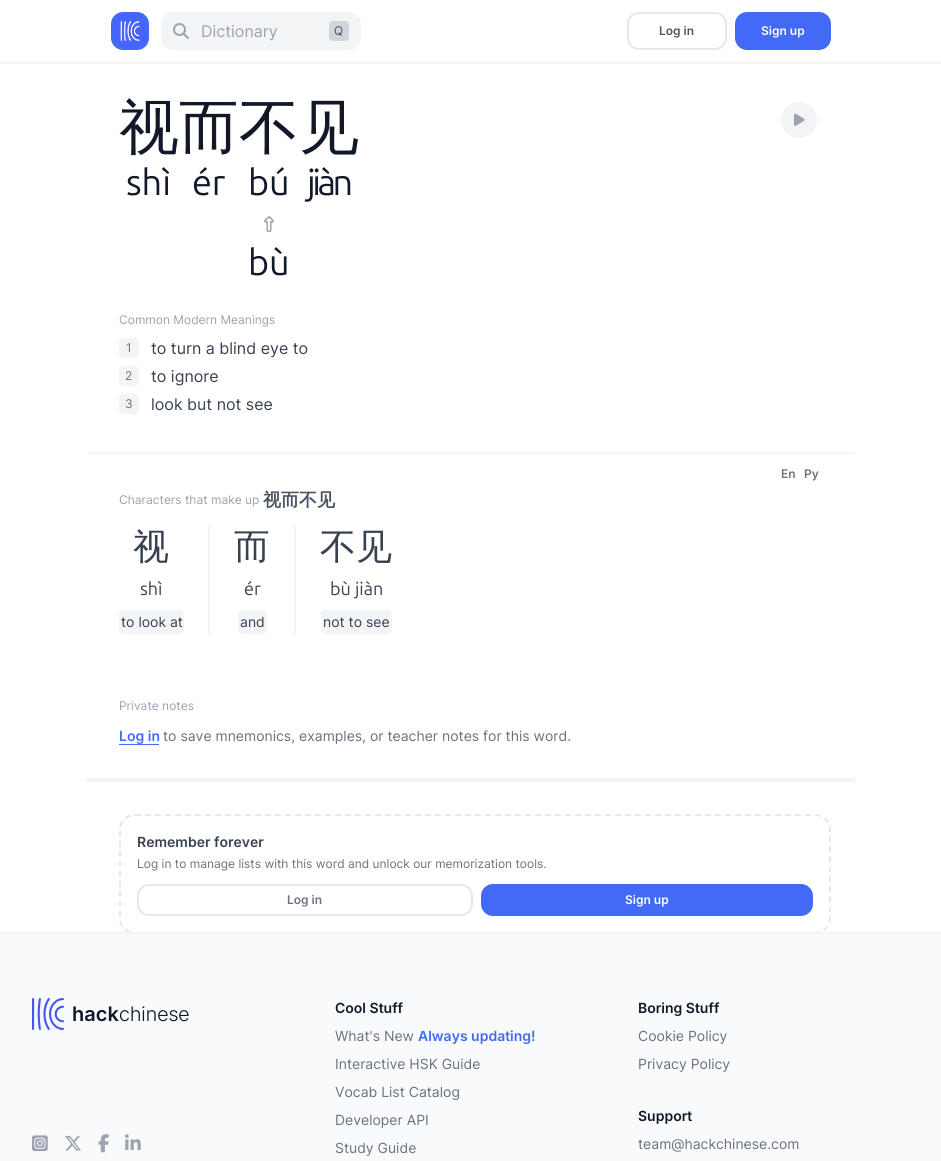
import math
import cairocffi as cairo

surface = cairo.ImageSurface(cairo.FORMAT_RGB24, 941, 1161)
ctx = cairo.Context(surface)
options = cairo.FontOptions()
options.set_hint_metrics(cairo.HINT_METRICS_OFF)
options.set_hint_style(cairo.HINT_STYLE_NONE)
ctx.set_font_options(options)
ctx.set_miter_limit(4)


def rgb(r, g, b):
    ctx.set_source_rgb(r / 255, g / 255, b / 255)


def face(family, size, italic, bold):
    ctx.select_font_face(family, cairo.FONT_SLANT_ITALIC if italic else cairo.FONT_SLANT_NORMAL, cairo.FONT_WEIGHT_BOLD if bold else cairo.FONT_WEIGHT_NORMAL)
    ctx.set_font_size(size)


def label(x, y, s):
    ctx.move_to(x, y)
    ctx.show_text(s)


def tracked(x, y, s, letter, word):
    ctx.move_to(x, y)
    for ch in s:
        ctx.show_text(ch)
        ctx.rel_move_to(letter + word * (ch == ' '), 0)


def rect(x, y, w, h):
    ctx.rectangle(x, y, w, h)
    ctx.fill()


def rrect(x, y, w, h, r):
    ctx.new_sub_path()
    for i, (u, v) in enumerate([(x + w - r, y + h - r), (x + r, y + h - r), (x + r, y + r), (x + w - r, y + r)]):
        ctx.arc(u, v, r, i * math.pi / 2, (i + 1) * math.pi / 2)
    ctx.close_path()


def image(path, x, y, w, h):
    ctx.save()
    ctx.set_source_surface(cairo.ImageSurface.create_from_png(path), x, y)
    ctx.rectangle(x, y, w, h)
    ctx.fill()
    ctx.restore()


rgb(255, 255, 255)
ctx.paint()
rgb(243, 244, 246)
rect(0, 62, 941, 2)
rgb(66, 106, 247)
rrect(111, 12, 38, 38, 12)
ctx.fill()
image('image0.png', 113, 13, 34, 36)
rgb(243, 244, 246)
rrect(161, 12, 200, 38, 12)
ctx.fill()
image('image1.png', 173, 23, 16, 16)
face('Inter', 16, 0, 0)
rgb(156, 163, 175)
label(201, 37, 'Dictionary')
rgb(209, 213, 219)
rrect(329, 21, 20, 20, 4)
ctx.fill()
face('Inter', 12, 0, 0)
rgb(75, 85, 99)
label(334, 35, 'Q')
rrect(628, 13, 98, 36, 11)
rgb(229, 231, 235)
ctx.stroke()
face('Inter SemiBold', 12, 0, 0)
rgb(75, 85, 99)
label(659, 35, 'Log in')
rgb(66, 106, 247)
rrect(735, 12, 96, 38, 12)
ctx.fill()
rgb(255, 255, 255)
label(761, 35, 'Sign up')
face('WenQuanYi Zen Hei Medium', 60, 0, 0)
rgb(17, 24, 39)
label(119, 148, '视而不见')
face('Ubuntu', 36, 0, 0)
label(126, 195, 'shì')
label(192, 195, 'ér')
label(248, 195, 'bú')
tracked(307, 195, 'jiàn', -3.5, 0)
image('image2.png', 264, 216, 10, 16)
label(248, 275, 'bù')
rgb(243, 244, 246)
ctx.new_path()
ctx.arc(799, 120, 18, 0, 2 * math.pi)
ctx.fill()
image('image3.png', 794, 113, 11, 13)
face('Inter', 12, 0, 0)
rgb(156, 163, 175)
label(119, 324, 'Common Modern Meanings')
rgb(243, 244, 246)
rrect(119, 338, 20, 20, 4)
ctx.fill()
rgb(107, 114, 128)
label(126, 352, '1')
face('Inter', 16, 0, 0)
rgb(55, 65, 81)
label(151, 354, 'to turn a blind eye to')
rgb(243, 244, 246)
rrect(119, 366, 20, 20, 4)
ctx.fill()
face('Inter', 12, 0, 0)
rgb(107, 114, 128)
label(125, 380, '2')
face('Inter', 16, 0, 0)
rgb(55, 65, 81)
label(151, 382, 'to ignore')
rgb(243, 244, 246)
rrect(119, 394, 20, 20, 4)
ctx.fill()
face('Inter', 12, 0, 0)
rgb(107, 114, 128)
label(125, 408, '3')
face('Inter', 16, 0, 0)
rgb(55, 65, 81)
label(151, 410, 'look but not see')
rgb(243, 244, 246)
rect(87, 452, 768, 2)
face('Inter SemiBold', 12, 0, 0)
rgb(107, 114, 128)
label(781, 478, 'En')
label(804, 478, 'Py')
face('Inter', 12, 0, 0)
rgb(156, 163, 175)
label(119, 504, 'Characters that make up')
face('WenQuanYi Zen Hei', 18, 0, 1)
rgb(75, 85, 99)
label(263, 506, '视而不见')
rgb(243, 244, 246)
rect(208, 526, 2, 108)
face('WenQuanYi Zen Hei Medium', 36, 0, 0)
rgb(55, 65, 81)
label(133, 559, '视')
face('Ubuntu', 18, 0, 0)
label(140, 595, 'shì')
rgb(243, 244, 246)
rrect(119, 610, 65, 24, 4)
ctx.fill()
face('Inter', 14, 0, 0)
rgb(55, 65, 81)
label(121, 627, 'to look at')
rgb(243, 244, 246)
rect(294, 526, 2, 108)
face('WenQuanYi Zen Hei Medium', 36, 0, 0)
rgb(55, 65, 81)
label(234, 559, '而')
face('Ubuntu', 18, 0, 0)
label(244, 595, 'ér')
rgb(243, 244, 246)
rrect(238, 610, 29, 24, 4)
ctx.fill()
face('Inter', 14, 0, 0)
rgb(55, 65, 81)
label(240, 627, 'and')
face('WenQuanYi Zen Hei Medium', 36, 0, 0)
label(320, 559, '不见')
face('Ubuntu', 18, 0, 0)
label(330, 595, 'bù jiàn')
rgb(243, 244, 246)
rrect(321, 610, 71, 24, 4)
ctx.fill()
face('Inter', 14, 0, 0)
rgb(55, 65, 81)
label(323, 627, 'not to see')
rgb(243, 244, 246)
rect(87, 778, 768, 4)
face('Inter', 12, 0, 0)
rgb(156, 163, 175)
label(119, 710, 'Private notes')
face('Inter SemiBold', 14, 0, 0)
rgb(66, 106, 247)
label(119, 741, 'Log in')
rect(119, 744, 40, 1)
face('Inter', 14, 0, 0)
rgb(107, 114, 128)
label(163, 741, 'to save mnemonics, examples, or teacher notes for this word.')
ctx.new_path()
ctx.move_to(135, 815)
ctx.line_to(815, 815)
ctx.curve_to(823.5, 815, 830, 821.5, 830, 830)
ctx.line_to(830, 918)
ctx.curve_to(830, 926.5, 823.5, 933, 815, 933)
ctx.line_to(135, 933)
ctx.curve_to(126.5, 933, 120, 926.5, 120, 918)
ctx.line_to(120, 830)
ctx.curve_to(120, 821.5, 126.5, 815, 135, 815)
ctx.close_path()
rgb(229, 231, 235)
ctx.set_dash([6, 4])
ctx.stroke()
face('Inter SemiBold', 14, 0, 0)
rgb(55, 65, 81)
label(137, 847, 'Remember forever')
face('Inter', 12, 0, 0)
rgb(107, 114, 128)
label(137, 868, 'Log in to manage lists with this word and unlock our memorization tools.')
rrect(138, 885, 334, 30, 11)
rgb(229, 231, 235)
ctx.set_dash([])
ctx.stroke()
face('Inter SemiBold', 12, 0, 0)
rgb(107, 114, 128)
label(287, 904, 'Log in')
rgb(66, 106, 247)
rrect(481, 884, 332, 32, 12)
ctx.fill()
rgb(255, 255, 255)
label(625, 904, 'Sign up')
rgb(249, 250, 251)
rect(0, 934, 941, 227)
rgb(243, 244, 246)
rect(0, 932, 941, 2)
image('image4.png', 32, 998, 32, 32)
face('Inter SemiBold', 20, 0, 0)
rgb(17, 24, 39)
label(72, 1021, 'hack')
face('Inter Light', 20, 0, 0)
label(119, 1021, 'chinese')
image('image5.png', 32, 1135, 16, 17)
image('image6.png', 65, 1135, 16, 16)
image('image7.png', 98, 1134, 11, 19)
image('image8.png', 125, 1134, 16, 16)
face('Inter SemiBold', 14, 0, 0)
label(335, 1013, 'Cool Stuff')
face('Inter', 14, 0, 0)
rgb(107, 114, 128)
label(335, 1041, 'What\'s New')
face('Inter SemiBold', 14, 0, 0)
rgb(66, 106, 247)
label(418, 1041, 'Always updating!')
face('Inter', 14, 0, 0)
rgb(107, 114, 128)
label(335, 1069, 'Interactive HSK Guide')
label(335, 1097, 'Vocab List Catalog')
label(335, 1125, 'Developer API')
label(335, 1153, 'Study Guide')
face('Inter SemiBold', 14, 0, 0)
rgb(17, 24, 39)
label(638, 1013, 'Boring Stuff')
face('Inter', 14, 0, 0)
rgb(107, 114, 128)
label(638, 1041, 'Cookie Policy')
label(638, 1069, 'Privacy Policy')
face('Inter SemiBold', 14, 0, 0)
rgb(17, 24, 39)
label(638, 1121, 'Support')
face('Inter', 14, 0, 0)
rgb(107, 114, 128)
label(638, 1149, 'team@hackchinese.com')
surface.write_to_png('render.png')
